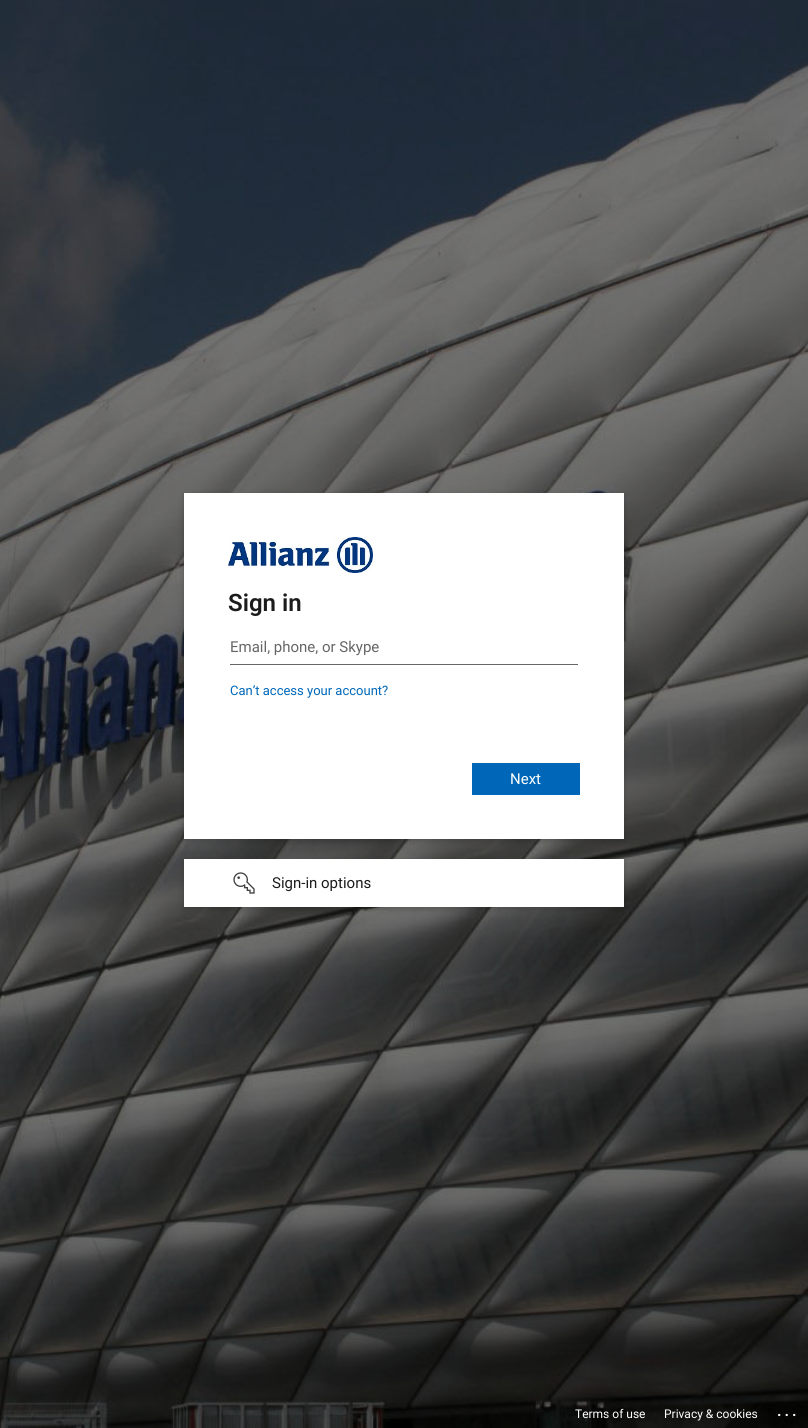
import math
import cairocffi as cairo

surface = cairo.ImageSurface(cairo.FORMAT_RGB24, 808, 1428)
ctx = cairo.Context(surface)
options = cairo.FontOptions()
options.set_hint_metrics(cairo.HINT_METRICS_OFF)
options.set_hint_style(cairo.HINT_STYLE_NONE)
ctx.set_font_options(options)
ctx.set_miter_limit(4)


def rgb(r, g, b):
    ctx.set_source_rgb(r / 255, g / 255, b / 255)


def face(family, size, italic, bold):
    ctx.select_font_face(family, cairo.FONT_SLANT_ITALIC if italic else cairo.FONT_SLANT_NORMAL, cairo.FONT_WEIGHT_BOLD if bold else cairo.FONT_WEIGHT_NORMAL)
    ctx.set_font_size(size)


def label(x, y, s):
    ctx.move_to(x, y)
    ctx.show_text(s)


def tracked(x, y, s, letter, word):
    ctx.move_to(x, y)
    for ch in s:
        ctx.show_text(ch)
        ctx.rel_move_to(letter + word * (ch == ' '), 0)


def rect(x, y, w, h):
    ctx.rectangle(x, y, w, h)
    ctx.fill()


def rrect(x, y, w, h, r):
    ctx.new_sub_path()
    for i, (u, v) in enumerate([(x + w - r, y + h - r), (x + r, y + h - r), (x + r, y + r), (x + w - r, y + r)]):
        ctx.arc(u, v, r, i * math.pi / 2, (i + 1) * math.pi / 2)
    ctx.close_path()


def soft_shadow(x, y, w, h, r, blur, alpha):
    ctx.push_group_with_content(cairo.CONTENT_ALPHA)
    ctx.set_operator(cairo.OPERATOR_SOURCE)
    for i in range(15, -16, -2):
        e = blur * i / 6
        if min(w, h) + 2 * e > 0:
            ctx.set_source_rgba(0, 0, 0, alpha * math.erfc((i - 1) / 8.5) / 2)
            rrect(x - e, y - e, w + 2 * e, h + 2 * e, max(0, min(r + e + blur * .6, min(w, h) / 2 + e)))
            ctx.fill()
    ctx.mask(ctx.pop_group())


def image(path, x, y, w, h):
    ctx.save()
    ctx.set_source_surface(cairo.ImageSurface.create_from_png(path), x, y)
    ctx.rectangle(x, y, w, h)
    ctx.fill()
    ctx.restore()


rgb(255, 255, 255)
ctx.paint()
image('image0.png', 0, 0, 808, 1428)
rgb(0, 0, 0)
soft_shadow(184, 495, 440, 346, 0, 3, 0.2)
rgb(255, 255, 255)
rect(184, 493, 440, 346)
image('image1.png', 228, 537, 145, 36)
face('Roboto SemiBold', 24, 0, 0)
rgb(27, 27, 27)
label(228, 611, 'Sign in')
rgb(102, 102, 102)
rect(230, 664, 348, 1)
face('Roboto', 15, 0, 0)
label(230, 652, 'Email, phone, or Skype')
face('Roboto', 13, 0, 0)
rgb(0, 103, 184)
label(230, 695, 'Can’t access your account?')
rect(472, 763, 108, 32)
face('Roboto', 15, 0, 0)
rgb(255, 255, 255)
label(510, 784, 'Next')
rgb(0, 0, 0)
soft_shadow(184, 861, 440, 48, 0, 3, 0.2)
rgb(255, 255, 255)
rect(184, 859, 440, 48)
image('image2.png', 233, 872, 22, 22)
rgb(27, 27, 27)
label(272, 888, 'Sign-in options')
face('Roboto', 12, 0, 0)
rgb(255, 255, 255)
label(575, 1418, 'Terms of use')
label(664, 1418, 'Privacy & cookies')
face('Roboto SemiBold', 16, 0, 0)
tracked(777, 1416, '...', 3, 0)
surface.write_to_png('render.png')
